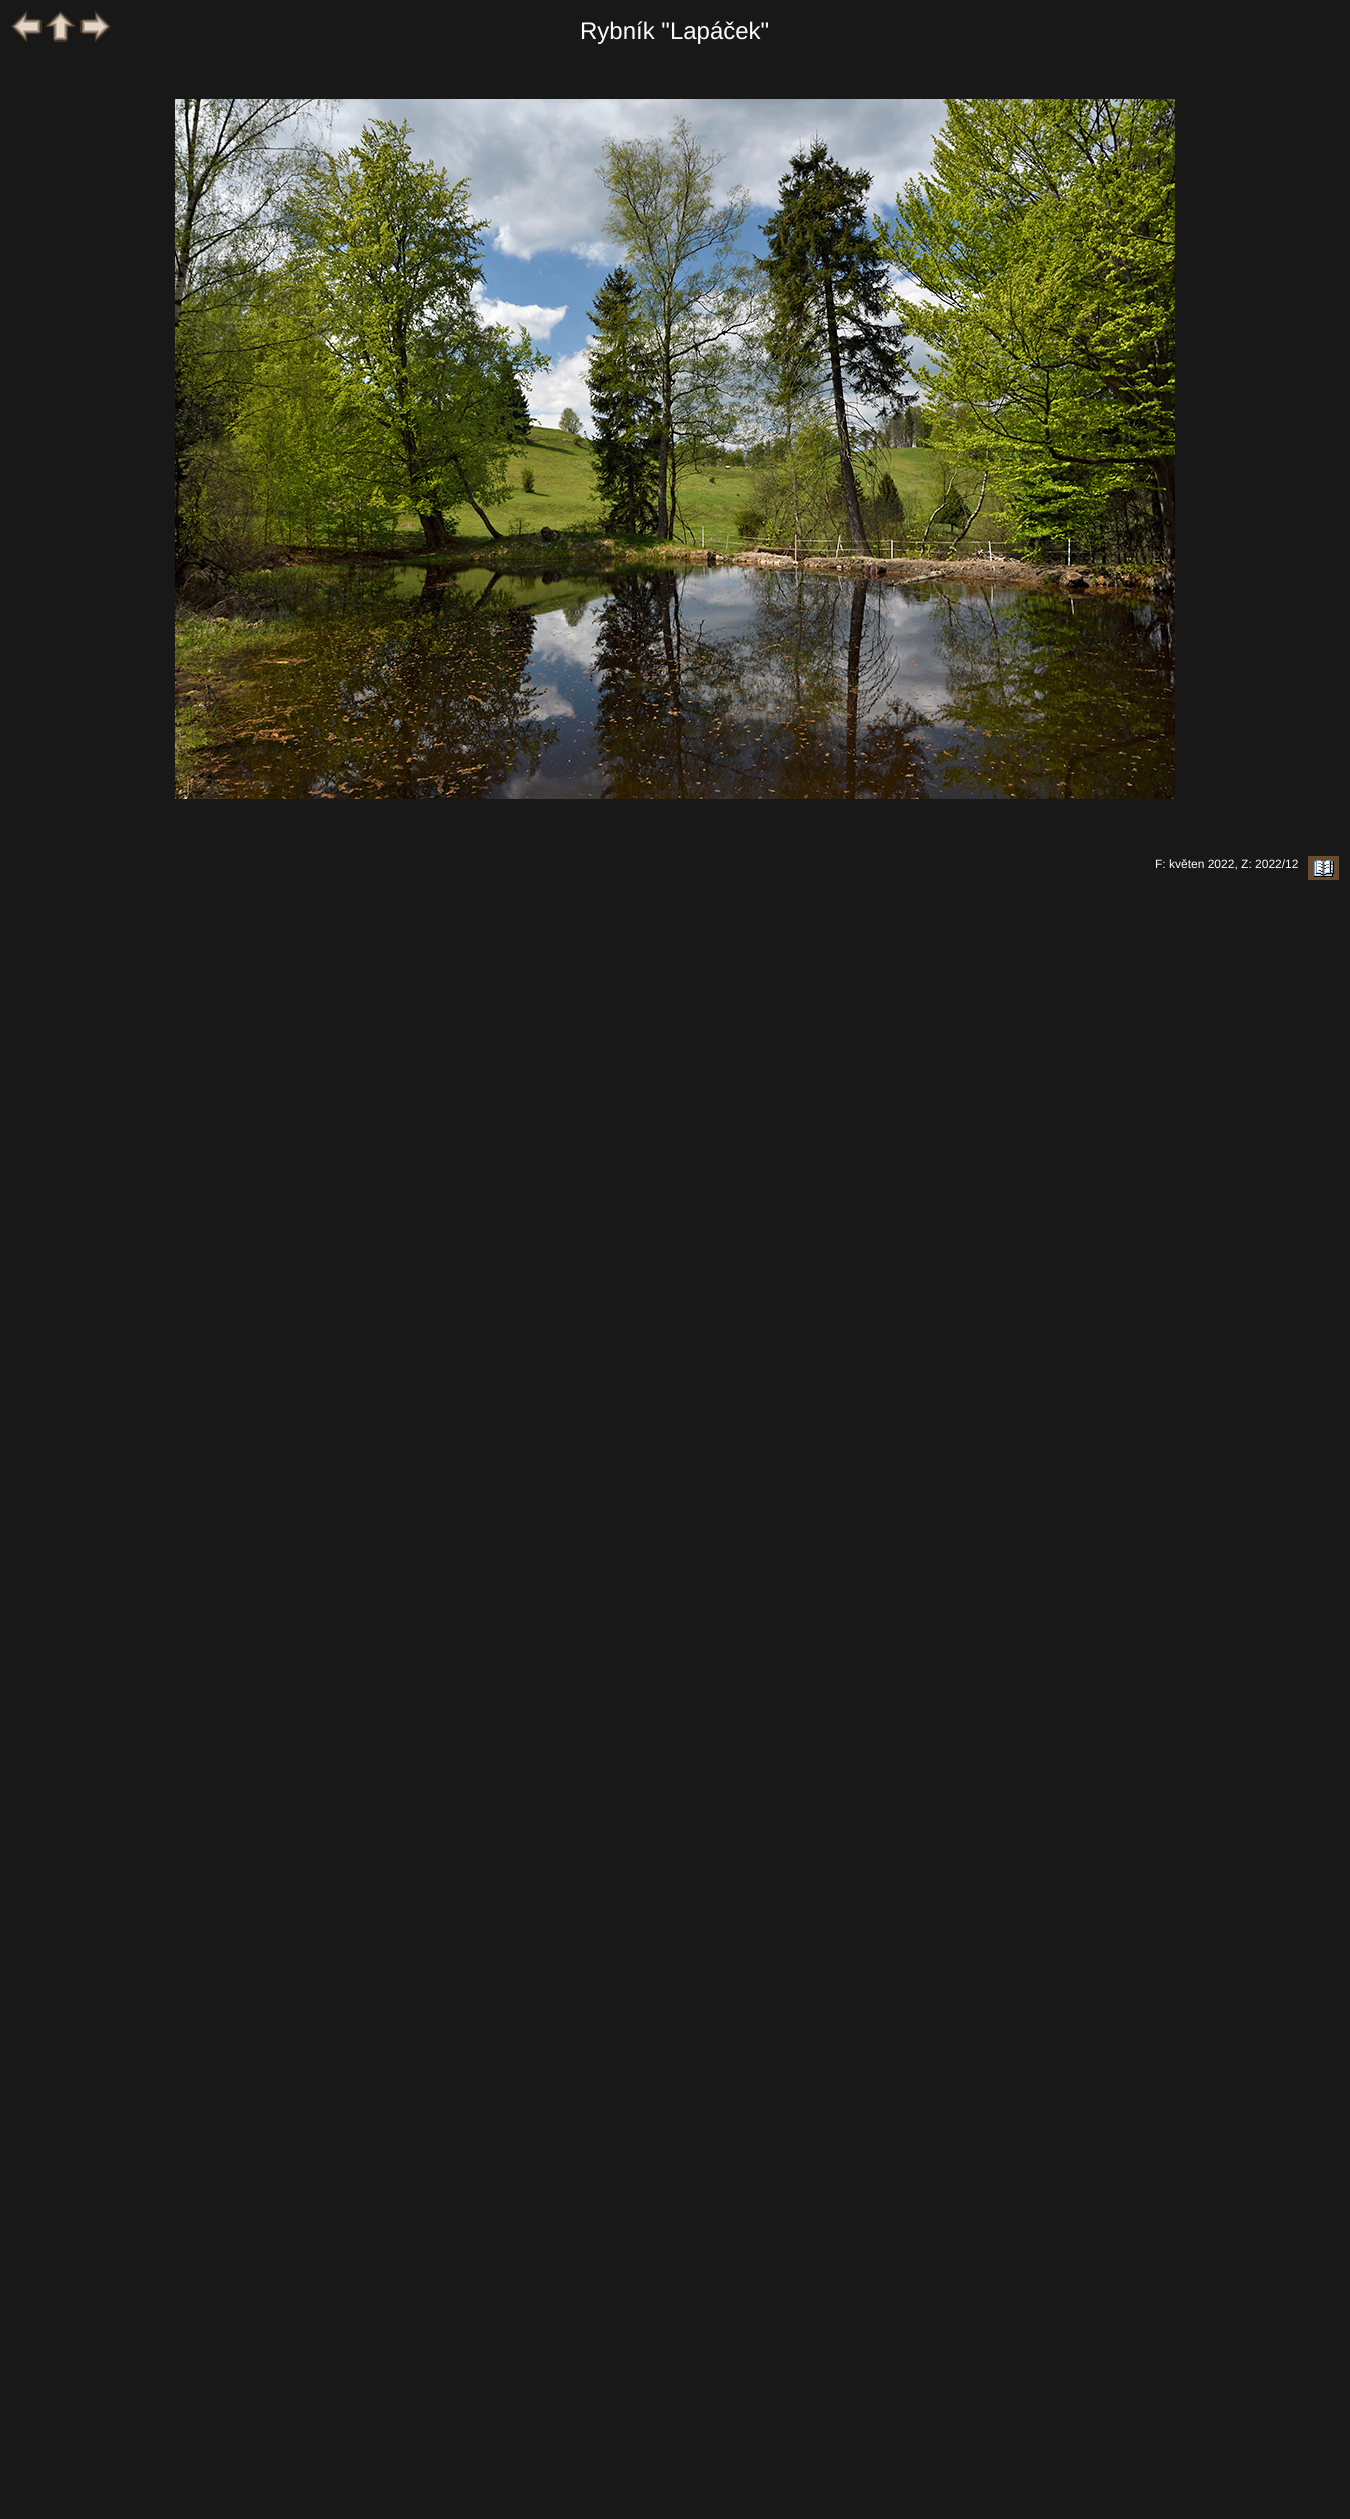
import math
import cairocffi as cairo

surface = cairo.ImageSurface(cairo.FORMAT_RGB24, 1350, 2519)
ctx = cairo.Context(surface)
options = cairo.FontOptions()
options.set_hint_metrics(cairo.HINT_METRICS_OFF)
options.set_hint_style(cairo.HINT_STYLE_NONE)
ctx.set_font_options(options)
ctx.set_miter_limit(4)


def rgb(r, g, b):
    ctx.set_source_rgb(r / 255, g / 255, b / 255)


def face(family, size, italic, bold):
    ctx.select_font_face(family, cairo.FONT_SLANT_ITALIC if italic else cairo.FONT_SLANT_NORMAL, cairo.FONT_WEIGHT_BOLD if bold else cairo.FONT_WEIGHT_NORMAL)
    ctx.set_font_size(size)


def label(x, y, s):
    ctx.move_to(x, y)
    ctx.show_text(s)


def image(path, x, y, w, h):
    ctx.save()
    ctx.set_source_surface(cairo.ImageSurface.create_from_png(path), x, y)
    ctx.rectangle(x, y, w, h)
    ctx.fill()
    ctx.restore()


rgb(24, 24, 24)
ctx.paint()
image('image0.png', 11, 11, 31, 31)
image('image1.png', 45, 11, 31, 31)
image('image2.png', 80, 11, 31, 31)
face('Liberation Sans', 24, 0, 0)
rgb(255, 255, 255)
label(580, 39, 'Rybník "Lapáček"')
image('image3.png', 175, 99, 1000, 700)
face('Liberation Sans', 12, 0, 0)
label(1155, 868, 'F: květen 2022, Z: 2022/12')
image('image4.png', 1308, 856, 31, 24)
surface.write_to_png('render.png')
